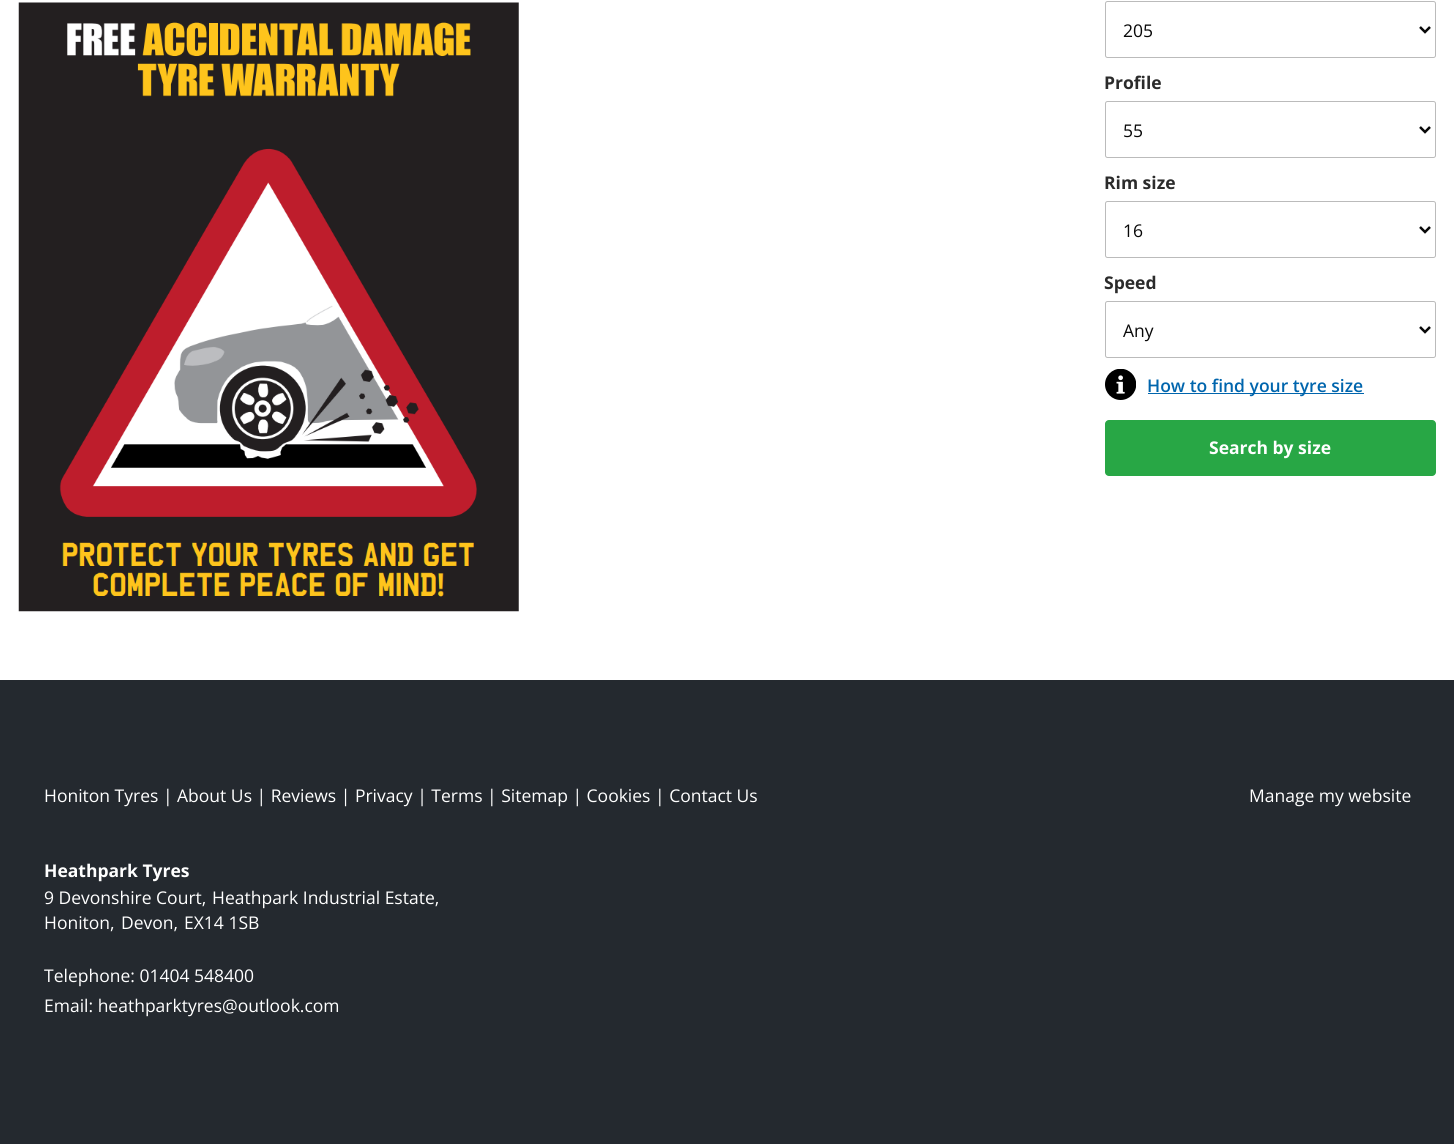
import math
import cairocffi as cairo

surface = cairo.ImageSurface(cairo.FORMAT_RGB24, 1454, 1144)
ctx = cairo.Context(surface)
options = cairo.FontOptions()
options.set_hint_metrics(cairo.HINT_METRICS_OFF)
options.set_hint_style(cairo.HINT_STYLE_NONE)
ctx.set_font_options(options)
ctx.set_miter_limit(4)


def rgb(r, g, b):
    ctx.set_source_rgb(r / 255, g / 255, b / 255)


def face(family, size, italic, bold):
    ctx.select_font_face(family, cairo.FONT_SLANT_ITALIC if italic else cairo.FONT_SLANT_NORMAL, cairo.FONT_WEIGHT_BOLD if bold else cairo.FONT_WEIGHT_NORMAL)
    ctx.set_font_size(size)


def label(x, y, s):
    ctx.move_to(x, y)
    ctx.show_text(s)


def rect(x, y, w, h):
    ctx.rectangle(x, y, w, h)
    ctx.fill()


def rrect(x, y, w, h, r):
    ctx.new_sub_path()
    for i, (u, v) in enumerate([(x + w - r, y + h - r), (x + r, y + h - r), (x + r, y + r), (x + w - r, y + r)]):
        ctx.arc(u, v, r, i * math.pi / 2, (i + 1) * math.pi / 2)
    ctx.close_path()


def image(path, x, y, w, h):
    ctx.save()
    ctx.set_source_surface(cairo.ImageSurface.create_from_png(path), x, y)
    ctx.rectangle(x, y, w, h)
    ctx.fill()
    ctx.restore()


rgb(255, 255, 255)
ctx.paint()
image('image0.png', 18, 2, 501, 610)
rrect(1105.5, 1.5, 330, 56, 2)
rgb(187, 187, 187)
ctx.set_line_width(1)
ctx.stroke()
ctx.new_path()
ctx.move_to(1420, 27)
ctx.line_to(1425, 32)
ctx.line_to(1430, 27)
rgb(8, 8, 8)
ctx.set_line_width(2.5)
ctx.stroke()
face('Open Sans', 17.5, 0, 0)
label(1123, 37, '205')
face('Open Sans', 17.5, 0, 1)
rgb(43, 43, 43)
label(1104, 89, 'Profile')
rrect(1105.5, 101.5, 330, 56, 2)
rgb(187, 187, 187)
ctx.set_line_width(1)
ctx.stroke()
ctx.new_path()
ctx.move_to(1420, 127)
ctx.line_to(1425, 132)
ctx.line_to(1430, 127)
rgb(8, 8, 8)
ctx.set_line_width(2.5)
ctx.stroke()
face('Open Sans', 17.5, 0, 0)
label(1123, 137, '55')
face('Open Sans', 17.5, 0, 1)
rgb(43, 43, 43)
label(1104, 189, 'Rim size')
rrect(1105.5, 201.5, 330, 56, 2)
rgb(187, 187, 187)
ctx.set_line_width(1)
ctx.stroke()
ctx.new_path()
ctx.move_to(1420, 227)
ctx.line_to(1425, 232)
ctx.line_to(1430, 227)
rgb(8, 8, 8)
ctx.set_line_width(2.5)
ctx.stroke()
face('Open Sans', 17.5, 0, 0)
label(1123, 237, '16')
face('Open Sans', 17.5, 0, 1)
rgb(43, 43, 43)
label(1104, 289, 'Speed')
rrect(1105.5, 301.5, 330, 56, 2)
rgb(187, 187, 187)
ctx.set_line_width(1)
ctx.stroke()
ctx.new_path()
ctx.move_to(1420, 327)
ctx.line_to(1425, 332)
ctx.line_to(1430, 327)
rgb(8, 8, 8)
ctx.set_line_width(2.5)
ctx.stroke()
face('Open Sans', 17.5, 0, 0)
label(1123, 337, 'Any')
image('image1.png', 1105, 369, 31, 31)
rgb(0, 101, 173)
rect(1148, 393, 216, 1)
face('Open Sans SemiBold', 17.5, 0, 0)
label(1147, 392, 'How to find your tyre size')
rgb(40, 167, 69)
rrect(1105, 420, 331, 56, 4)
ctx.fill()
face('Open Sans', 17.5, 0, 1)
rgb(255, 255, 255)
label(1209, 454, 'Search by size')
rgb(36, 41, 47)
rect(0, 680, 1454, 464)
face('Open Sans', 17.5, 0, 0)
rgb(255, 255, 255)
label(44, 802, 'Honiton Tyres | About Us | Reviews | Privacy | Terms | Sitemap | Cookies | Contact Us')
label(1249, 802, 'Manage my website')
face('Open Sans', 17.5, 0, 1)
label(44, 877, 'Heathpark Tyres')
face('Open Sans', 17.5, 0, 0)
label(44, 904, '9 Devonshire Court,')
label(212, 904, 'Heathpark Industrial Estate,')
label(44, 929, 'Honiton,')
label(121, 929, 'Devon,')
label(184, 929, 'EX14 1SB')
label(44, 982, 'Telephone: 01404 548400')
label(44, 1012, 'Email: heathparktyres@outlook.com')
surface.write_to_png('render.png')
